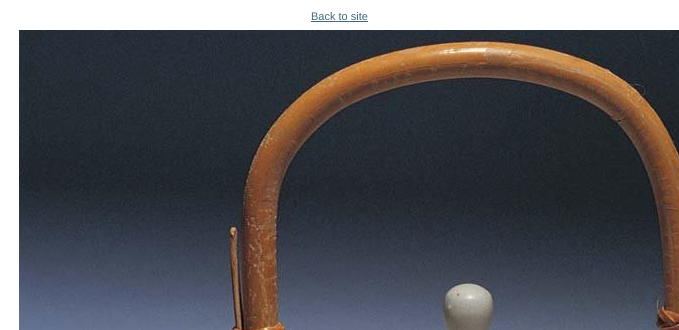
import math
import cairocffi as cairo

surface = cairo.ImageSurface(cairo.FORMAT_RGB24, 679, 330)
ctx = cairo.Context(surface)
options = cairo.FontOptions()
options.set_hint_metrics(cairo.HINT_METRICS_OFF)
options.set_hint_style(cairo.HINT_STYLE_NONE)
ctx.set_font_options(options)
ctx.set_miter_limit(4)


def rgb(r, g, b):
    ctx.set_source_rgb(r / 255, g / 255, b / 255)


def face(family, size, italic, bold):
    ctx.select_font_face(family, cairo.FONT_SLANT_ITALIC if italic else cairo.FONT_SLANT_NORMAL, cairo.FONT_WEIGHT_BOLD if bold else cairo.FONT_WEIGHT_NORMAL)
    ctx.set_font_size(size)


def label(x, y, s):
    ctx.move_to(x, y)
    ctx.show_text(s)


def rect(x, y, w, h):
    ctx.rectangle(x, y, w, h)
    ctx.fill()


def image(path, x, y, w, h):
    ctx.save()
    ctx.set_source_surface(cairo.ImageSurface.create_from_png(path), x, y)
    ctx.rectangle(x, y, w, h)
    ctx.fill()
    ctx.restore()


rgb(255, 255, 255)
ctx.paint()
face('Liberation Sans', 11, 0, 0)
rgb(67, 105, 118)
label(311, 20, 'Back to site')
rect(311, 21, 57, 1)
image('image0.png', 19, 30, 660, 300)
surface.write_to_png('render.png')
